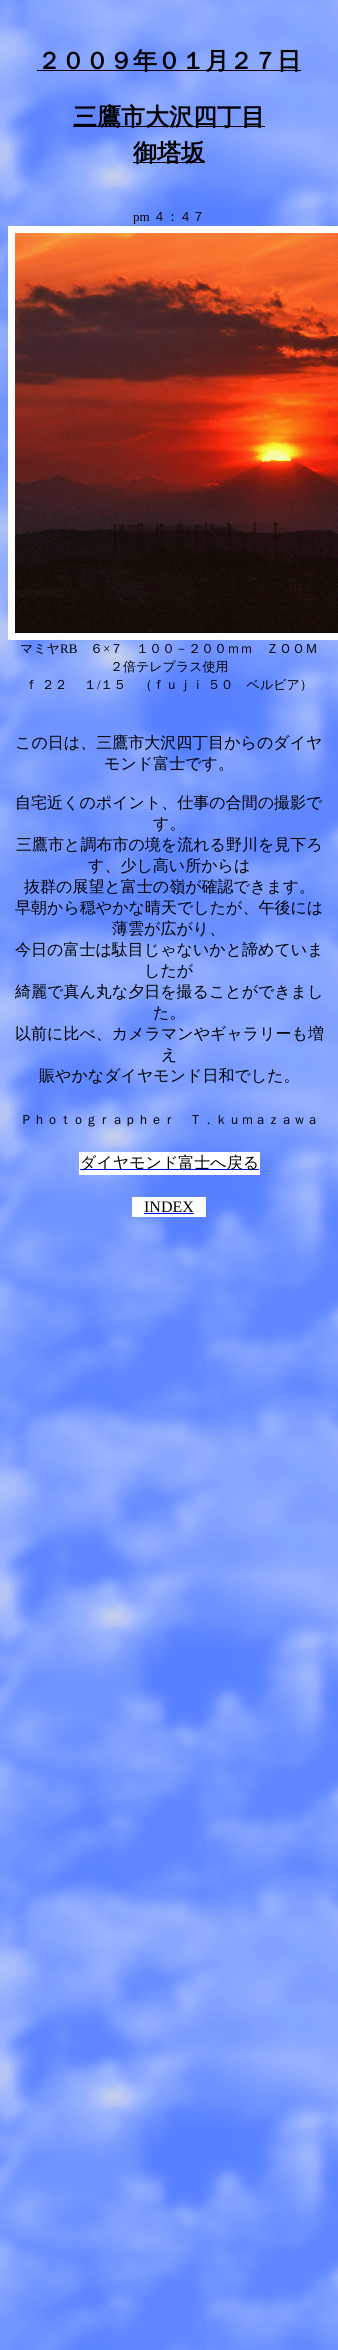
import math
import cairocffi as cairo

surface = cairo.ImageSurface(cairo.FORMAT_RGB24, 338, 2350)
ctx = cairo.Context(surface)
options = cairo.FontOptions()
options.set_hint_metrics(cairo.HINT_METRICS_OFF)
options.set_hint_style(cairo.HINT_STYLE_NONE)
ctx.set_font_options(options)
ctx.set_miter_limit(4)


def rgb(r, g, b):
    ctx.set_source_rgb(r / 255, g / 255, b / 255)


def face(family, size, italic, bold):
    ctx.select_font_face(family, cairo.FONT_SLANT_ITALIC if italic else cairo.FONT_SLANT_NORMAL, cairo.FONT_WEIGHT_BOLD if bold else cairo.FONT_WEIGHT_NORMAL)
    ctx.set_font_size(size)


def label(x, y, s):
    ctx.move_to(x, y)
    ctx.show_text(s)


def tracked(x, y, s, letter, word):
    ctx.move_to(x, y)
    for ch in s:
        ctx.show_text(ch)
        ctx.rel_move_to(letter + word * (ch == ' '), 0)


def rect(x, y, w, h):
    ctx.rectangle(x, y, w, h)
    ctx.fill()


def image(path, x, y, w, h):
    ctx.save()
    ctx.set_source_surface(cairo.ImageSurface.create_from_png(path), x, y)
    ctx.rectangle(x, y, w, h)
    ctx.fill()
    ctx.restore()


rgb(255, 255, 255)
ctx.paint()
image('image0.png', 0, 0, 338, 2350)
rgb(0, 0, 0)
rect(37, 70, 264, 1)
face('WenQuanYi Zen Hei', 24, 0, 1)
label(37, 69, '２００９年０１月２７日')
rect(73, 126, 192, 1)
label(73, 125, '三鷹市大沢四丁目')
rect(133, 162, 72, 1)
label(133, 161, '御塔坂')
face('Liberation Serif', 13, 0, 0)
label(133, 221, 'pm')
face('WenQuanYi Zen Hei Medium', 13, 0, 0)
label(153, 221, '４：４７')
rgb(255, 255, 255)
rect(8, 226, 330, 414)
image('image1.png', 15, 233, 323, 400)
rgb(0, 0, 0)
label(20, 653, 'マミヤ')
face('Liberation Serif', 13, 0, 0)
label(60, 653, 'RB')
face('WenQuanYi Zen Hei Medium', 13, 0, 0)
label(90, 653, '６')
face('Liberation Serif', 13, 0, 0)
label(103, 653, '×')
face('WenQuanYi Zen Hei Medium', 13, 0, 0)
label(110, 653, '７　１００－２００ｍｍ　ＺＯＯＭ')
label(110, 671, '２倍テレプラス使用')
tracked(25, 689, 'ｆ ２２ 　１ １５　（ｆｕｊｉ ５０　ベルビア）', 0, -0.5)
face('Liberation Serif', 13, 0, 0)
label(97, 689, '/')
face('WenQuanYi Zen Hei Medium', 16, 0, 0)
label(15, 748, 'この日は、三鷹市大沢四丁目からのダイヤ')
label(104, 769, 'モンド富士です。')
label(15, 808, '自宅近くのポイント、仕事の合間の撮影で')
label(153, 829, 'す。')
label(16, 850, '三鷹市と調布市の境を流れる野川を見下ろ')
label(88, 871, 'す、少し高い所からは')
label(24, 892, '抜群の展望と富士の嶺が確認できます。')
label(15, 913, '早朝から穏やかな晴天でしたが、午後には')
label(112, 934, '薄雲が広がり、')
label(15, 955, '今日の富士は駄目じゃないかと諦めていま')
label(144, 976, 'したが')
label(15, 997, '綺麗で真ん丸な夕日を撮ることができまし')
label(153, 1018, 'た。')
label(15, 1039, '以前に比べ、カメラマンやギャラリーも増')
label(161, 1060, 'え')
label(39, 1081, '賑やかなダイヤモンド日和でした。')
face('WenQuanYi Zen Hei Medium', 13, 0, 0)
label(20, 1124, 'Ｐｈｏｔｏｇｒａｐｈｅｒ　Ｔ．ｋｕｍａｚａｗａ')
rgb(255, 255, 255)
rect(79, 1152, 181, 23)
rgb(0, 0, 238)
rect(80, 1169, 179, 1)
face('WenQuanYi Zen Hei Medium', 16, 0, 0)
rgb(0, 0, 0)
label(80, 1168, 'ダイヤモンド富士へ戻る')
rgb(255, 255, 255)
rect(132, 1197, 74, 20)
face('Liberation Serif', 16, 0, 0)
rgb(0, 0, 0)
label(144, 1212, 'INDEX')
rgb(0, 0, 238)
rect(144, 1213, 50, 1)
surface.write_to_png('render.png')
